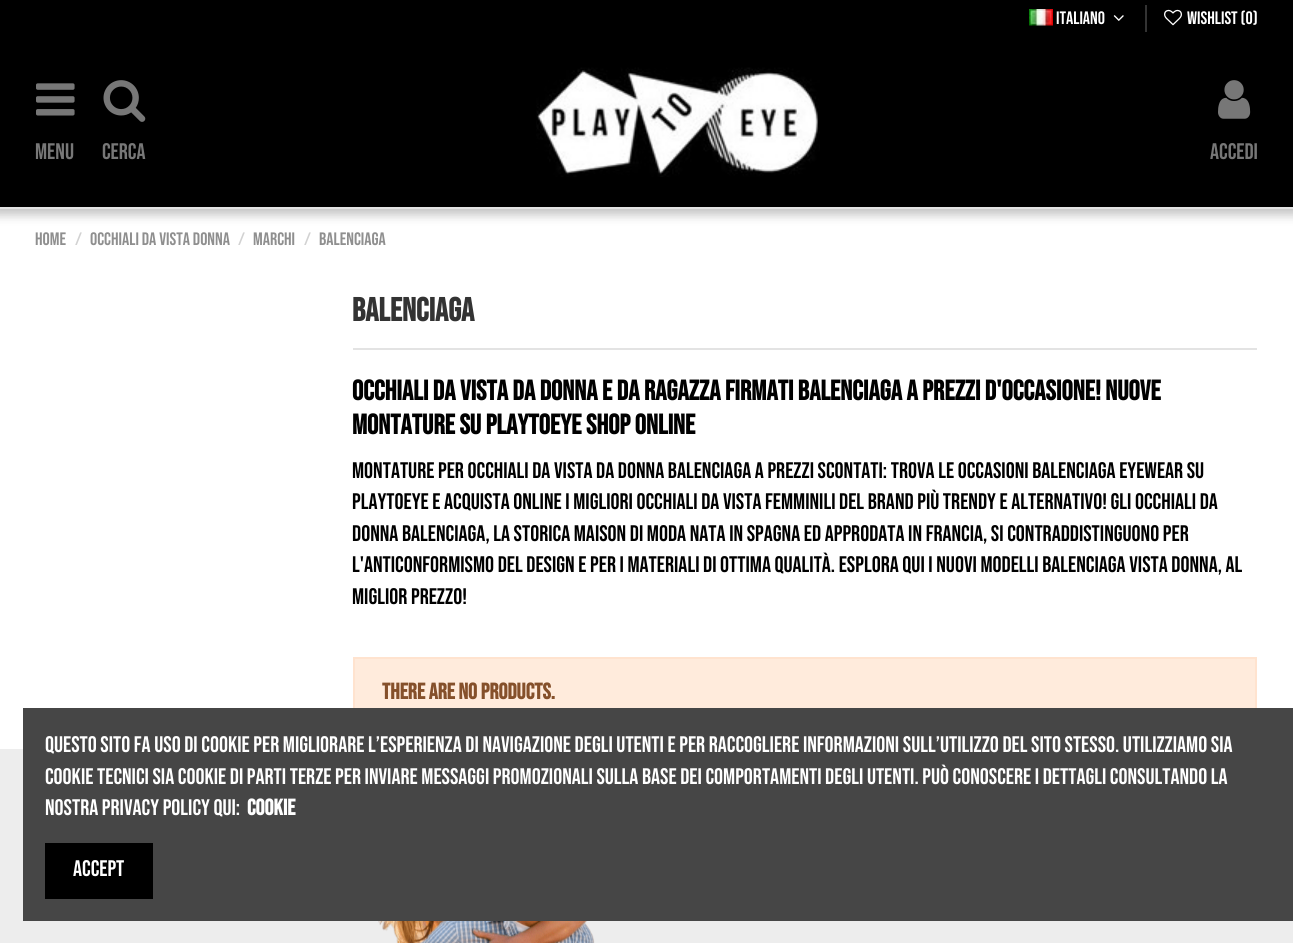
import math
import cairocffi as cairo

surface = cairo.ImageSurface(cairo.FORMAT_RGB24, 1293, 943)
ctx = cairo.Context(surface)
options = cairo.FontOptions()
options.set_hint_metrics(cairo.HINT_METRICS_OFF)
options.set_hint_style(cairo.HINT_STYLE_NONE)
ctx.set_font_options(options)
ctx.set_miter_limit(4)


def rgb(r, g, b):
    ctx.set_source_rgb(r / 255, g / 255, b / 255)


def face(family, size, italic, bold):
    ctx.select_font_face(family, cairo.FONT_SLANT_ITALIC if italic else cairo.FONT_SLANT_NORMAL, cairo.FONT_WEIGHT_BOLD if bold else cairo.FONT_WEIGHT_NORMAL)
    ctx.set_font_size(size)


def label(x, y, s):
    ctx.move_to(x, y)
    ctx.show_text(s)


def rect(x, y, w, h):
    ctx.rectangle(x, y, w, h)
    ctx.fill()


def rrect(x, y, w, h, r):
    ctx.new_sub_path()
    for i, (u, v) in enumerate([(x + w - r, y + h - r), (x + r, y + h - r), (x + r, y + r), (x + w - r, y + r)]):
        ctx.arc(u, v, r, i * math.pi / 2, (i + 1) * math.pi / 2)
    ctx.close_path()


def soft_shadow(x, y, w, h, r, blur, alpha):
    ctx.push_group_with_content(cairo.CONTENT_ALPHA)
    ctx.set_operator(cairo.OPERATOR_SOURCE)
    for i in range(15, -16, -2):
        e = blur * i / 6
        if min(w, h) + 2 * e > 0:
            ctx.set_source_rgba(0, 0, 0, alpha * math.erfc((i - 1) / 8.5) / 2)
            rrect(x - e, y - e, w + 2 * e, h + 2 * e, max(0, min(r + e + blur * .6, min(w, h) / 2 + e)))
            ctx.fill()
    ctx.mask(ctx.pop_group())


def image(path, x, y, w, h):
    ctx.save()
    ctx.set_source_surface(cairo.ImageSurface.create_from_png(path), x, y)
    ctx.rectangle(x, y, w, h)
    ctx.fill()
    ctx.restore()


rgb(255, 255, 255)
ctx.paint()
rgb(196, 196, 196)
soft_shadow(-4, 35, 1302, 180, 0, 5, 1)
rgb(0, 0, 0)
rect(0, 0, 1293, 207)
image('image0.png', 1029, 9, 24, 17)
face('Bebas Neue', 18, 0, 0)
rgb(255, 255, 255)
label(1056, 24, 'Italiano')
image('image1.png', 1113, 15, 11, 6)
rgb(51, 51, 51)
rect(1145, 5, 2, 27)
image('image2.png', 1164, 9, 18, 17)
rgb(255, 255, 255)
label(1187, 24, 'Wishlist (0)')
rgb(227, 227, 227)
rect(0, 207, 1293, 2)
image('image3.png', 36, 83, 39, 33)
face('Bebas Neue', 22.5, 0, 0)
rgb(119, 119, 119)
label(35, 159, 'Menu')
image('image4.png', 103, 80, 43, 42)
label(102, 159, 'Cerca')
image('image5.png', 536, 67, 284, 110)
image('image6.png', 1218, 80, 33, 39)
label(1210, 159, 'Accedi')
face('Bebas Neue', 18, 0, 0)
rgb(143, 143, 143)
label(35, 245, 'Home')
rgb(210, 210, 210)
label(75, 245, '/')
rgb(143, 143, 143)
label(90, 245, 'Occhiali da vista donna')
rgb(210, 210, 210)
label(238, 245, '/')
rgb(143, 143, 143)
label(253, 245, 'Marchi')
rgb(210, 210, 210)
label(304, 245, '/')
rgb(143, 143, 143)
label(319, 245, 'Balenciaga')
rgb(227, 227, 227)
rect(353, 348, 904, 2)
face('Bebas Neue', 33, 0, 1)
rgb(51, 51, 51)
label(352, 321, 'Balenciaga')
face('Bebas Neue', 28.1, 0, 1)
rgb(0, 0, 0)
label(352, 400, 'Occhiali da vista da donna e da ragazza firmati Balenciaga a prezzi d\'occasione! Nuove')
label(352, 434, 'montature su Playtoeye shop online')
face('Bebas Neue', 22.5, 0, 0)
label(352, 478, 'Montature per occhiali da vista da donna Balenciaga a prezzi scontati: trova le occasioni Balenciaga Eyewear su')
label(352, 509, 'Playtoeye e acquista online i migliori occhiali da vista femminili del brand più trendy e alternativo! Gli occhiali da')
label(352, 541, 'donna Balenciaga, la storica Maison di moda nata in Spagna ed approdata in Francia, si contraddistinguono per')
label(352, 572, 'l\'anticonformismo del design e per i materiali di ottima qualità. Esplora qui i nuovi modelli Balenciaga vista donna, al')
label(352, 604, 'miglior prezzo!')
rgb(255, 235, 220)
rect(355, 659, 900, 49)
ctx.rectangle(354, 658, 902, 67)
rgb(255, 227, 207)
ctx.stroke()
face('Bebas Neue', 22.5, 0, 1)
rgb(133, 80, 43)
label(382, 699, 'There are no products.')
rgb(237, 237, 237)
rect(0, 749, 1293, 194)
image('image7.png', 378, 921, 217, 22)
rgb(70, 70, 70)
rect(23, 708, 1270, 213)
face('Bebas Neue', 22.5, 0, 0)
rgb(255, 255, 255)
label(45, 752, 'Questo sito fa uso di cookie per migliorare l’esperienza di navigazione degli utenti e per raccogliere informazioni sull’utilizzo del sito stesso. Utilizziamo sia')
label(45, 784, 'cookie tecnici sia cookie di parti terze per inviare messaggi promozionali sulla base dei comportamenti degli utenti. Può conoscere i dettagli consultando la')
label(45, 815, 'nostra privacy policy qui:')
face('Bebas Neue', 22.5, 0, 1)
label(247, 815, 'Cookie')
rgb(0, 0, 0)
rect(45, 843, 108, 56)
face('Bebas Neue', 22.5, 0, 0)
rgb(255, 255, 255)
label(73, 876, 'Accept')
surface.write_to_png('render.png')
